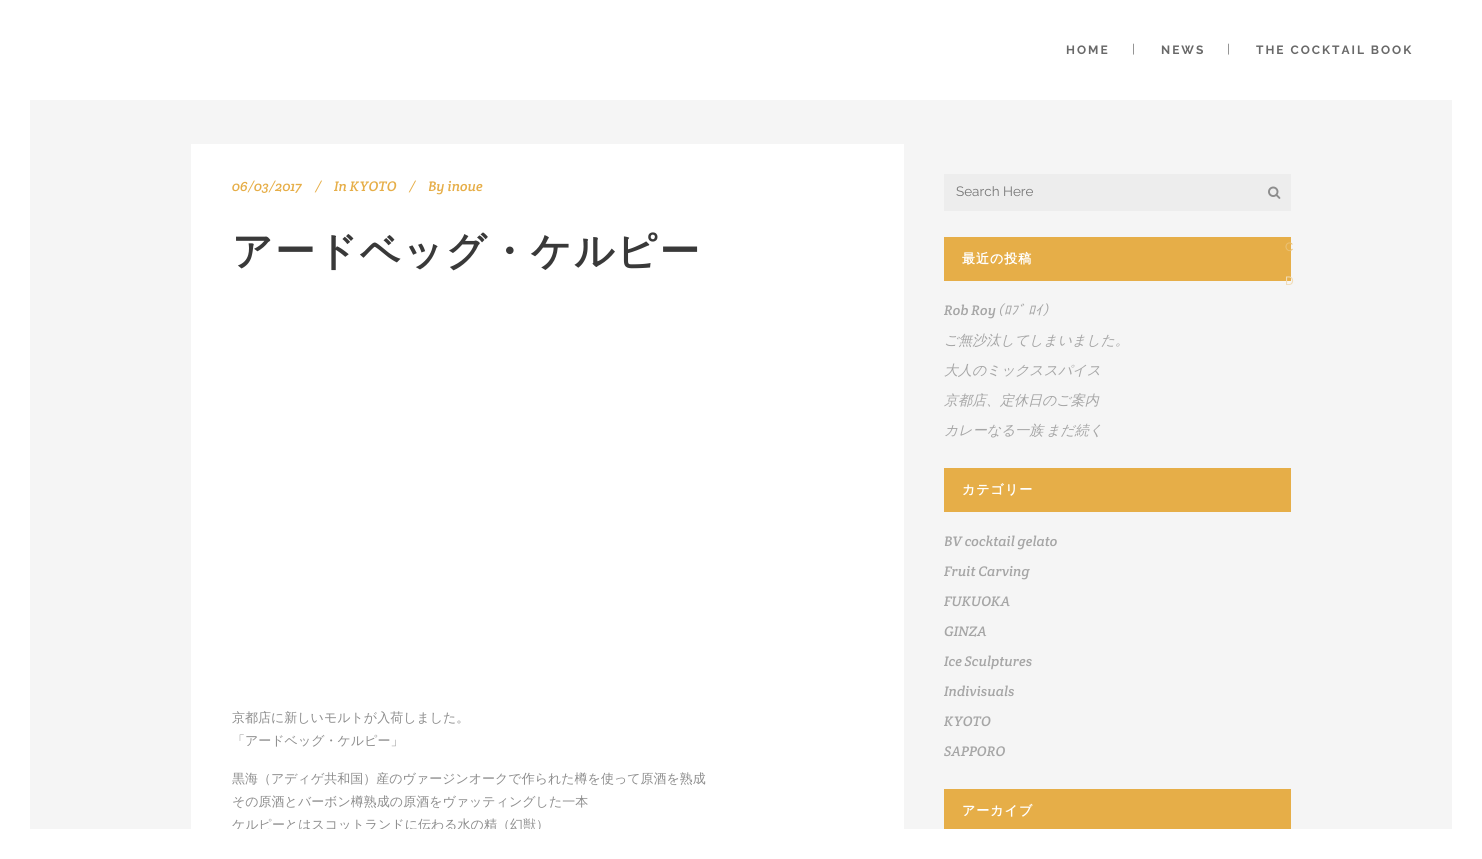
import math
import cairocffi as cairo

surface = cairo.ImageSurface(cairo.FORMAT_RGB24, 1482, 859)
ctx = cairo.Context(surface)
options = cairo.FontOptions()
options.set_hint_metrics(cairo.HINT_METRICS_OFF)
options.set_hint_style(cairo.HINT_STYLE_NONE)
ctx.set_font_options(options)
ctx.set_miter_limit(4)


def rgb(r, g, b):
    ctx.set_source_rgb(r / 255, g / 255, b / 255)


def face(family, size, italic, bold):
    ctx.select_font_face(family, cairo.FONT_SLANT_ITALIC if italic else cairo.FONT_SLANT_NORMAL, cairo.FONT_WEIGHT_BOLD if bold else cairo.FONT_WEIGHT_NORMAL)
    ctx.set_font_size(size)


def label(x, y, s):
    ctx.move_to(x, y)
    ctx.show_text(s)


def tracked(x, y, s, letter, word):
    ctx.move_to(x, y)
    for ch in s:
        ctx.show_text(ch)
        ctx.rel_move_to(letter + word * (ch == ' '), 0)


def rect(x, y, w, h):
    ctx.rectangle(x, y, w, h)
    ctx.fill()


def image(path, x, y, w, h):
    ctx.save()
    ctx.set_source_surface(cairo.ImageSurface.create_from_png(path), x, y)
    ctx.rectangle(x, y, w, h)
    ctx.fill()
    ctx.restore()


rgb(245, 245, 245)
ctx.paint()
rgb(255, 255, 255)
rect(0, 0, 30, 859)
rect(191, 144, 713, 685)
face('Crete Round', 14, 1, 0)
rgb(230, 174, 72)
label(232, 191, '06/03/2017')
label(315, 191, '/')
label(334, 191, 'In KYOTO')
label(409, 191, '/')
label(428, 191, 'By inoue')
face('WenQuanYi Zen Hei', 40, 0, 1)
rgb(57, 57, 57)
tracked(232, 265, 'アードベッグ・ケルピー', 2, 0)
face('WenQuanYi Zen Hei Medium', 13, 0, 0)
rgb(141, 141, 141)
label(232, 722, '京都店に新しいモルトが入荷しました。')
label(232, 745, '「アードベッグ・ケルピー」')
label(232, 783, '黒海（アディゲ共和国）産のヴァージンオークで作られた樽を使って原酒を熟成')
label(232, 806, 'その原酒とバーボン樽熟成の原酒をヴァッティングした一本')
label(232, 829, 'ケルピーとはスコットランドに伝わる水の精（幻獣）')
rgb(237, 237, 237)
rect(944, 174, 347, 37)
face('Raleway', 13.5, 0, 0)
rgb(117, 117, 117)
label(956, 196, 'Search Here')
image('image0.png', 1268, 186, 13, 13)
rgb(230, 174, 72)
rect(944, 237, 347, 44)
face('WenQuanYi Zen Hei', 13, 0, 1)
rgb(255, 255, 255)
tracked(962, 263, '最近の投稿', 1, 0)
face('Crete Round', 14, 1, 0)
rgb(166, 166, 166)
label(944, 315, 'Rob Roy')
face('IPAPGothic', 14, 1, 0)
label(996, 315, '（ﾛﾌﾞ')
label(1028, 315, 'ﾛｲ）')
face('WenQuanYi Zen Hei Medium', 14, 1, 0)
label(944, 345, 'ご無沙汰してしまいました。')
label(944, 375, '大人のミックススパイス')
label(944, 405, '京都店、定休日のご案内')
label(944, 435, 'カレーなる一族')
label(1046, 435, 'まだ続く')
rgb(230, 174, 72)
rect(944, 468, 347, 44)
face('WenQuanYi Zen Hei', 13, 0, 1)
rgb(255, 255, 255)
tracked(962, 494, 'カテゴリー', 1, 0)
face('Crete Round', 14, 1, 0)
rgb(166, 166, 166)
label(944, 546, 'BV cocktail gelato')
label(944, 576, 'Fruit Carving')
label(944, 606, 'FUKUOKA')
label(944, 636, 'GINZA')
label(944, 666, 'Ice Sculptures')
label(944, 696, 'Indivisuals')
label(944, 726, 'KYOTO')
label(944, 756, 'SAPPORO')
rgb(230, 174, 72)
rect(944, 789, 347, 40)
face('WenQuanYi Zen Hei', 13, 0, 1)
rgb(255, 255, 255)
tracked(962, 815, 'アーカイブ', 1, 0)
rect(30, 0, 1422, 100)
face('Raleway', 12, 0, 1)
rgb(105, 105, 105)
tracked(1066, 54, 'HOME', 2, 0)
face('Raleway', 12, 0, 0)
label(1132, 53, '|')
face('Raleway', 12, 0, 1)
tracked(1161, 54, 'NEWS', 2, 0)
face('Raleway', 12, 0, 0)
label(1227, 53, '|')
face('Raleway', 12, 0, 1)
tracked(1256, 54, 'THE COCKTAIL BOOK', 2, 0)
face('Raleway Medium', 12, 0, 0)
rgb(234, 192, 115)
label(1285, 251, 'C')
rgb(240, 220, 183)
label(1285, 285, 'D')
rgb(255, 255, 255)
rect(1452, 0, 30, 859)
rect(30, 829, 1422, 30)
surface.write_to_png('render.png')
